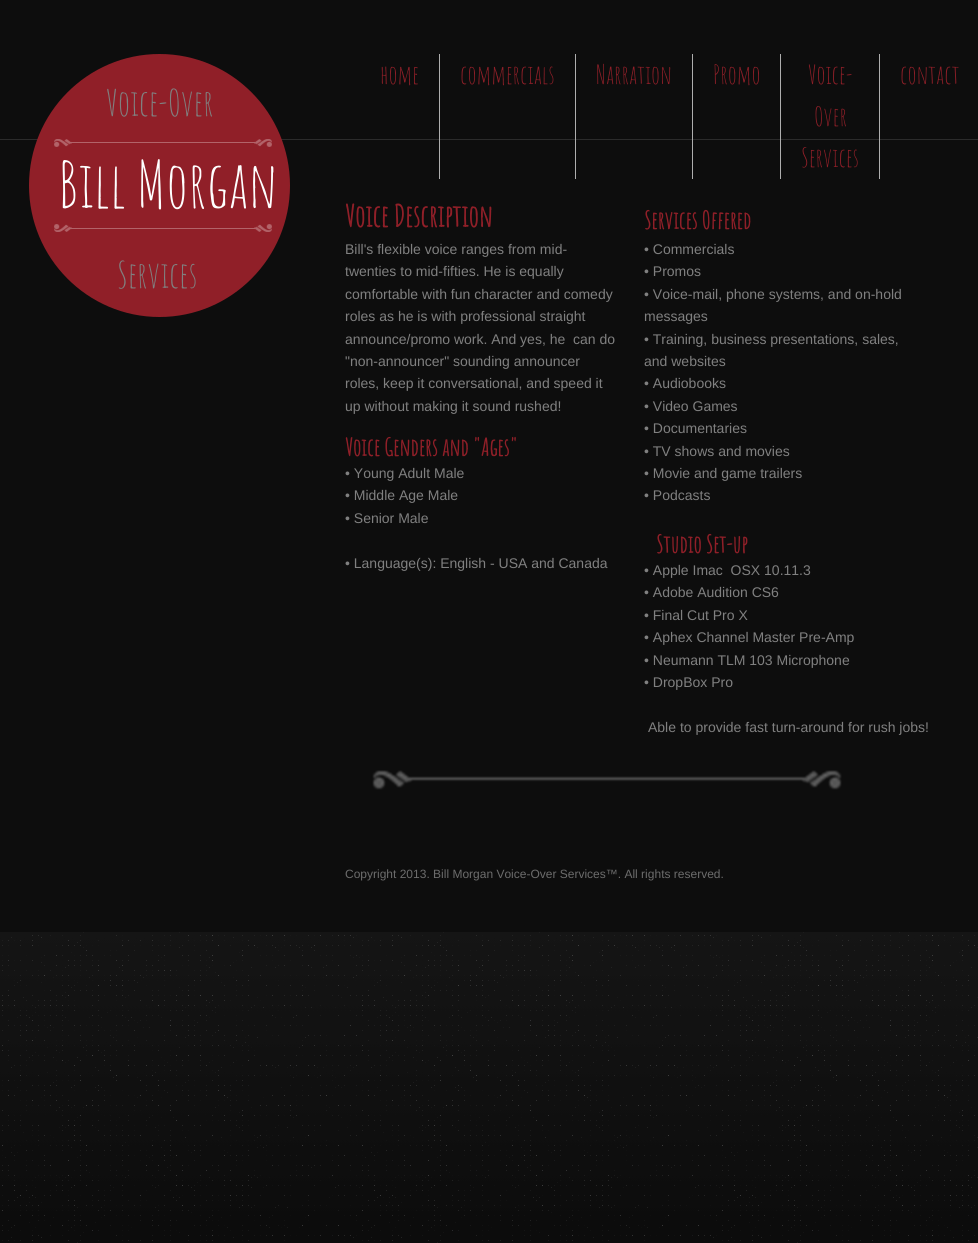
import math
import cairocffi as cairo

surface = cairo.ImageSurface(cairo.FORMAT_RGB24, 978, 1243)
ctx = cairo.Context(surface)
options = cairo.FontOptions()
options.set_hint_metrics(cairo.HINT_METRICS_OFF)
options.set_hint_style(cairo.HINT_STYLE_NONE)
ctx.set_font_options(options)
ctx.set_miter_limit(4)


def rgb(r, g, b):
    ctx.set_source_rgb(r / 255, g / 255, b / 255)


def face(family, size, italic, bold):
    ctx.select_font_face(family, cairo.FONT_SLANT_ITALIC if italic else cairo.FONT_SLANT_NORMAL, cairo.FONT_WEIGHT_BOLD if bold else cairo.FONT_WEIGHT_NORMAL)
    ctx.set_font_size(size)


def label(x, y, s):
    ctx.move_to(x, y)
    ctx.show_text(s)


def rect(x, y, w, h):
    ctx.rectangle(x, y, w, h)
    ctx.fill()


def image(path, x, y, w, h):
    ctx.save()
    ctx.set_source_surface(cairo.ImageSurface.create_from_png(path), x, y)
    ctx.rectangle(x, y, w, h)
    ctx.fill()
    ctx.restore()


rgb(255, 255, 255)
ctx.paint()
image('image0.png', 0, 932, 978, 311)
rgb(13, 13, 13)
rect(0, 0, 978, 932)
rgb(43, 43, 43)
rect(0, 139, 978, 1)
rgb(144, 31, 40)
ctx.new_path()
ctx.move_to(159.5, 54)
ctx.curve_to(231.5, 54, 290, 113, 290, 185.5)
ctx.curve_to(290, 258, 231.5, 317, 159.5, 317)
ctx.curve_to(87.5, 317, 29, 258, 29, 185.5)
ctx.curve_to(29, 113, 87.5, 54, 159.5, 54)
ctx.close_path()
ctx.fill()
rgb(174, 174, 174)
rect(439, 54, 1, 125)
face('Amatic SC', 26, 0, 0)
rgb(144, 31, 40)
label(380, 84, 'home')
rgb(174, 174, 174)
rect(575, 54, 1, 125)
rgb(144, 31, 40)
label(460, 84, 'commercials')
rgb(174, 174, 174)
rect(692, 54, 1, 125)
rgb(144, 31, 40)
label(596, 84, 'Narration')
rgb(174, 174, 174)
rect(780, 54, 1, 125)
rgb(144, 31, 40)
label(713, 84, 'Promo')
rgb(174, 174, 174)
rect(879, 54, 1, 125)
rgb(144, 31, 40)
label(808, 84, 'Voice-')
label(814, 126, 'Over')
label(801, 167, 'Services')
label(900, 84, 'contact')
face('Amatic SC', 36, 0, 0)
rgb(128, 128, 128)
label(106, 116, 'Voice-Over')
image('image1.png', 54, 139, 218, 8)
face('Amatic SC', 64, 0, 0)
rgb(255, 255, 255)
label(58, 208, 'Bill Morgan')
image('image2.png', 54, 224, 218, 8)
face('Amatic SC', 30, 0, 1)
rgb(144, 31, 40)
label(345, 227, 'Voice Description')
face('Amatic SC', 24, 0, 1)
label(644, 229, 'Services Offered')
face('Amatic SC', 36, 0, 0)
rgb(128, 128, 128)
label(117, 288, 'Services')
face('Liberation Sans', 14, 0, 0)
label(345, 254, 'Bill\'s flexible voice ranges from mid-')
label(345, 276, 'twenties to mid-fifties. He is equally')
label(345, 299, 'comfortable with fun character and comedy')
label(345, 321, 'roles as he is with professional straight')
label(345, 344, 'announce/promo work. And yes, he  can do')
label(345, 366, '"non-announcer" sounding announcer')
label(345, 388, 'roles, keep it conversational, and speed it')
label(345, 411, 'up without making it sound rushed!')
label(345, 478, '• Young Adult Male')
label(345, 500, '• Middle Age Male')
label(345, 523, '• Senior Male')
label(345, 568, '• Language(s): English - USA and Canada')
label(644, 254, '• Commercials')
label(644, 276, '• Promos')
label(644, 299, '• Voice-mail, phone systems, and on-hold')
label(644, 321, 'messages')
label(644, 344, '• Training, business presentations, sales,')
label(644, 366, 'and websites')
label(644, 388, '• Audiobooks')
label(644, 411, '• Video Games')
label(644, 433, '• Documentaries')
label(644, 456, '• TV shows and movies')
label(644, 478, '• Movie and game trailers')
label(644, 500, '• Podcasts')
face('Amatic SC', 24, 0, 1)
rgb(144, 31, 40)
label(345, 456, 'Voice Genders and "Ages"')
label(656, 553, 'Studio Set-up')
face('Liberation Sans', 14, 0, 0)
rgb(128, 128, 128)
label(644, 575, '• Apple Imac  OSX 10.11.3')
label(644, 597, '• Adobe Audition CS6')
label(644, 620, '• Final Cut Pro X')
label(644, 642, '• Aphex Channel Master Pre-Amp')
label(644, 665, '• Neumann TLM 103 Microphone')
label(644, 687, '• DropBox Pro')
label(648, 732, 'Able to provide fast turn-around for rush jobs!')
image('image3.png', 372, 770, 470, 20)
face('Liberation Sans', 12, 0, 0)
rgb(108, 108, 108)
label(345, 878, 'Copyright 2013. Bill Morgan Voice-Over Services™. All rights reserved.')
surface.write_to_png('render.png')
